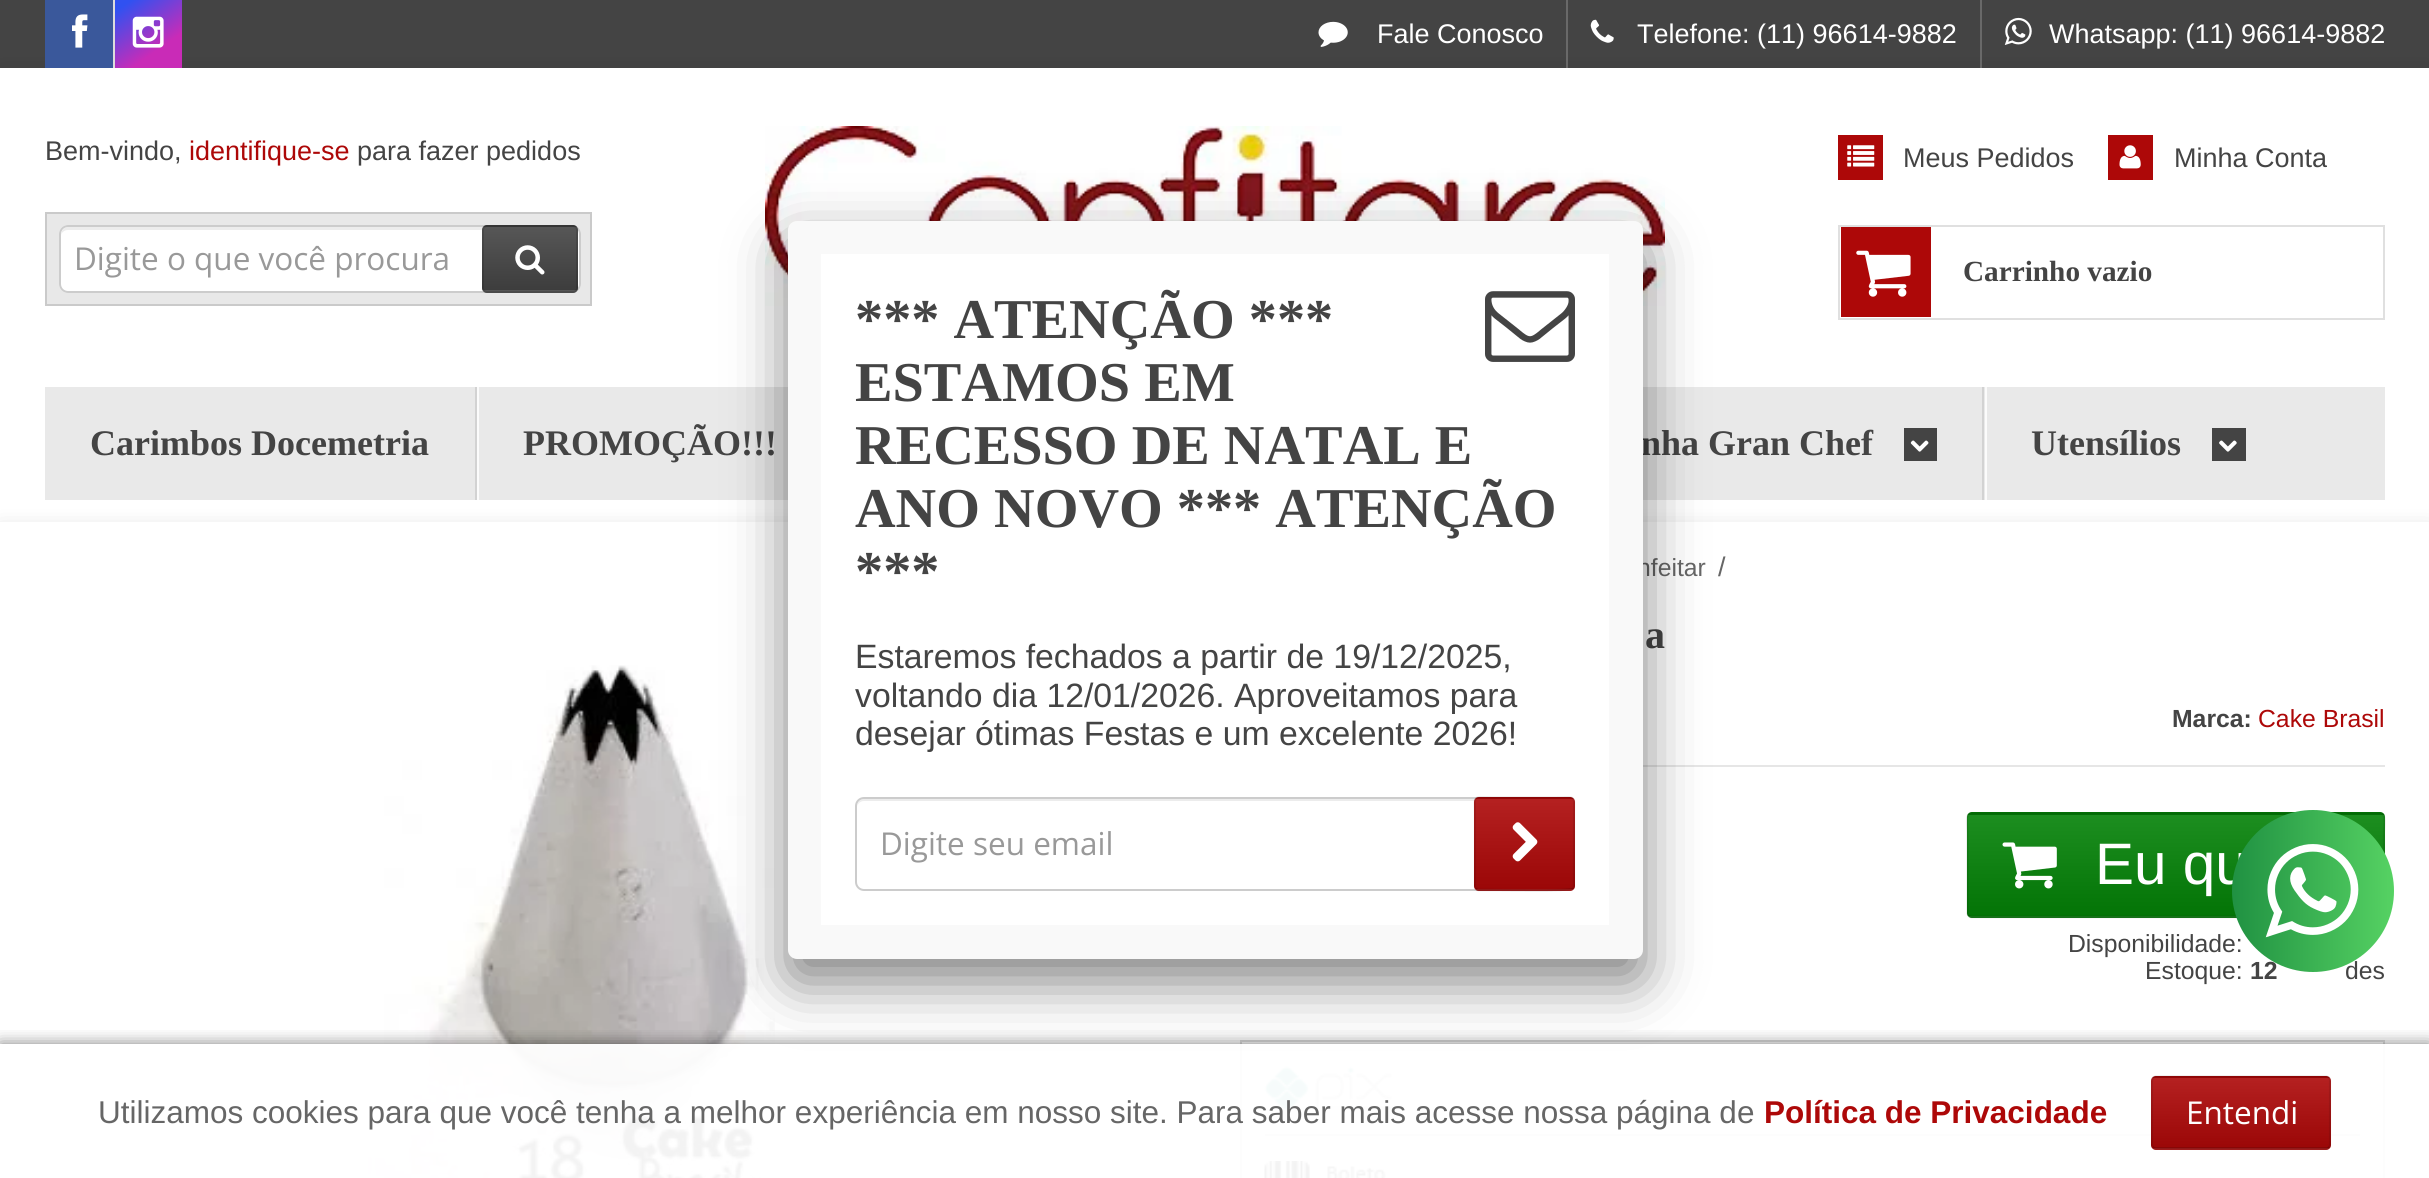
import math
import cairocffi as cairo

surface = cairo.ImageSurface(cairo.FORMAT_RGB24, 2429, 1178)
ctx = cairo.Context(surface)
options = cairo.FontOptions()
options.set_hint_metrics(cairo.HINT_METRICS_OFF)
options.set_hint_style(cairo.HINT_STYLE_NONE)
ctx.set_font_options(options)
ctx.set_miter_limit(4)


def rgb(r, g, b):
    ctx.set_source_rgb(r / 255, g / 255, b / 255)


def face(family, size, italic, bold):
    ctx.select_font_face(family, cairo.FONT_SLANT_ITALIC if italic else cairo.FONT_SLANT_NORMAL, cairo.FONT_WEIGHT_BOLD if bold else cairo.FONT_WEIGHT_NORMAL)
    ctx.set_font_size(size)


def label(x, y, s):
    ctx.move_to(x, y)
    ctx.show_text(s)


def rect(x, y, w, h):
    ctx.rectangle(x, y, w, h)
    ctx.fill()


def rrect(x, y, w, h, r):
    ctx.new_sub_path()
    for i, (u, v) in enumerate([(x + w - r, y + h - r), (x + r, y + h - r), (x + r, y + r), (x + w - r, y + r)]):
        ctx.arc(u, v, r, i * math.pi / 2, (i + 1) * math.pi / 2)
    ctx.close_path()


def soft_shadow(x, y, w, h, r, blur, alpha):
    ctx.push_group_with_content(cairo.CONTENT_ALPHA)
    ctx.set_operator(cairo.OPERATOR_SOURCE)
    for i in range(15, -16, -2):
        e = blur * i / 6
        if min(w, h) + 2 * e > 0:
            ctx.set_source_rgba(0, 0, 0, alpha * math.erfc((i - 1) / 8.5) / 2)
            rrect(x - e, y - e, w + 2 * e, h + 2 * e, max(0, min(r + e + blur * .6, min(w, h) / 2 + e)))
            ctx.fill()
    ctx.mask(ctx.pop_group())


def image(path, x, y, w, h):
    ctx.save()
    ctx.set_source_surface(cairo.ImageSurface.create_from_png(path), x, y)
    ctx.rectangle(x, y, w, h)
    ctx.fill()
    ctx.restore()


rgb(68, 68, 68)
ctx.paint()
rgb(0, 0, 0)
soft_shadow(0, 74, 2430, 455, 0, 11, 0.15)
rgb(58, 88, 155)
rect(45, 0, 68, 68)
image('image0.png', 72, 14, 16, 34)
rgb(221, 221, 221)
rect(113, 0, 2, 68)
gradient = cairo.LinearGradient(122, -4.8, 175, 72)
gradient.add_color_stop_rgba(0.1, 0.188, 0.318, 0.945, 1)
gradient.add_color_stop_rgba(0.7, 0.788, 0.169, 0.718, 1)
ctx.set_source(gradient)
rect(115, 0, 67, 68)
image('image1.png', 132, 16, 32, 32)
image('image2.png', 1318, 21, 30, 26)
face('Liberation Sans', 27, 0, 0)
rgb(255, 255, 255)
label(1377, 43, 'Fale Conosco')
ctx.set_source_rgba(1, 1, 1, 0.2)
rect(1566, 0, 2, 68)
image('image3.png', 1590, 19, 24, 24)
rgb(255, 255, 255)
label(1637, 43, 'Telefone: (11) 96614-9882')
ctx.set_source_rgba(1, 1, 1, 0.2)
rect(1980, 0, 2, 68)
image('image4.png', 2004, 17, 28, 28)
rgb(255, 255, 255)
label(2049, 43, 'Whatsapp: (11) 96614-9882')
rect(0, 68, 2429, 454)
rgb(68, 68, 68)
label(45, 160, 'Bem-vindo,')
rgb(173, 8, 8)
label(189, 160, 'identifique-se')
rgb(68, 68, 68)
label(357, 160, 'para fazer pedidos')
rgb(232, 232, 232)
ctx.rectangle(46, 213, 545, 92)
ctx.fill_preserve()
rgb(202, 202, 202)
ctx.stroke()
rgb(255, 255, 255)
rrect(59, 225, 522, 68, 9)
ctx.fill()
rgb(236, 236, 236)
ctx.new_path()
ctx.move_to(68, 230)
ctx.line_to(572, 230)
ctx.curve_to(575, 230, 578, 233, 578, 236)
ctx.curve_to(578, 232, 576, 227, 571, 227)
ctx.line_to(68, 227)
ctx.curve_to(63, 227, 61, 232, 61, 236)
ctx.curve_to(61, 233, 64, 230, 68, 230)
ctx.close_path()
ctx.fill()
rrect(60, 226, 520, 66, 8)
rgb(204, 204, 204)
ctx.stroke()
face('Open Sans', 31.5, 0, 0)
rgb(153, 153, 153)
label(74, 270, 'Digite o que você procura')
rgb(68, 68, 68)
rrect(482, 225, 96, 68, 5)
ctx.fill()
ctx.save()
rrect(482, 225, 96, 68, 5)
ctx.clip()
gradient = cairo.LinearGradient(530, 164, 530, 227)
gradient.add_color_stop_rgba(0, 1, 1, 1, 0.1)
gradient.add_color_stop_rgba(1, 0, 0, 0, 0.1)
ctx.set_source(gradient)
rect(482, 225, 96, 2)
ctx.restore()
gradient = cairo.LinearGradient(530, 227, 530, 290)
gradient.add_color_stop_rgba(0, 1, 1, 1, 0.1)
gradient.add_color_stop_rgba(1, 0, 0, 0, 0.1)
ctx.set_source(gradient)
rect(482, 227, 96, 63)
ctx.save()
rrect(482, 225, 96, 68, 5)
ctx.clip()
gradient = cairo.LinearGradient(530, 290, 530, 353)
gradient.add_color_stop_rgba(0, 1, 1, 1, 0.1)
gradient.add_color_stop_rgba(1, 0, 0, 0, 0.1)
ctx.set_source(gradient)
rect(482, 290, 96, 3)
ctx.restore()
rrect(483, 226, 94, 66, 4)
ctx.set_source_rgba(0, 0, 0, 0.13)
ctx.stroke()
image('image5.png', 515, 245, 30, 30)
image('image6.png', 765, 126, 900, 180)
rgb(173, 8, 8)
rect(1838, 135, 45, 45)
image('image7.png', 1847, 145, 28, 22)
face('Liberation Sans', 27, 0, 0)
rgb(68, 68, 68)
label(1903, 167, 'Meus Pedidos')
rgb(173, 8, 8)
rect(2108, 135, 45, 45)
image('image8.png', 2119, 145, 22, 24)
rgb(68, 68, 68)
label(2174, 167, 'Minha Conta')
ctx.rectangle(1839, 226, 545, 93)
rgb(224, 224, 224)
ctx.stroke()
rgb(173, 8, 8)
rect(1841, 227, 90, 90)
image('image9.png', 1856, 250, 55, 47)
face('Liberation Serif', 29.25, 0, 1)
rgb(68, 68, 68)
label(1963, 281, 'Carrinho vazio')
rgb(233, 233, 233)
rect(45, 387, 2340, 113)
rgb(0, 0, 0)
soft_shadow(0, 529, 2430, 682, 0, 11, 0.15)
rgb(210, 210, 210)
rect(475, 387, 2, 113)
face('Liberation Serif', 36, 0, 1)
rgb(68, 68, 68)
label(90, 455, 'Carimbos Docemetria')
rgb(251, 251, 251)
rect(477, 387, 2, 113)
rgb(68, 68, 68)
label(523, 455, 'PROMOÇÃO!!!')
rgb(210, 210, 210)
rect(1982, 387, 2, 113)
rgb(68, 68, 68)
label(1641, 455, 'nha Gran Chef')
rect(1904, 428, 33, 33)
image('image10.png', 1910, 440, 19, 12)
rgb(251, 251, 251)
rect(1985, 387, 2, 113)
rgb(68, 68, 68)
label(2031, 455, 'Utensílios')
rect(2212, 428, 34, 33)
image('image11.png', 2219, 440, 18, 12)
rgb(255, 255, 255)
rect(0, 522, 2429, 656)
image('image12.png', 343, 665, 432, 513)
face('Liberation Sans', 24.75, 0, 0)
rgb(102, 102, 102)
label(1637, 576, 'nfeitar')
face('Liberation Sans', 27, 0, 0)
label(1718, 576, '/')
face('Liberation Serif', 40, 0, 1)
rgb(68, 68, 68)
label(1645, 648, 'a')
rgb(230, 230, 230)
rect(1643, 765, 742, 2)
face('Liberation Sans', 24.75, 0, 1)
rgb(68, 68, 68)
label(2172, 727, 'Marca:')
face('Liberation Sans', 24.75, 0, 0)
rgb(173, 8, 8)
label(2258, 727, 'Cake Brasil')
rgb(3, 129, 7)
rrect(1967, 812, 418, 106, 5)
ctx.fill()
ctx.save()
rrect(1967, 812, 418, 106, 5)
ctx.clip()
gradient = cairo.LinearGradient(2176, 713, 2176, 815)
gradient.add_color_stop_rgba(0, 1, 1, 1, 0.1)
gradient.add_color_stop_rgba(1, 0, 0, 0, 0.1)
ctx.set_source(gradient)
rect(1967, 812, 418, 3)
ctx.restore()
gradient = cairo.LinearGradient(2176, 815, 2176, 916)
gradient.add_color_stop_rgba(0, 1, 1, 1, 0.1)
gradient.add_color_stop_rgba(1, 0, 0, 0, 0.1)
ctx.set_source(gradient)
rect(1967, 815, 418, 101)
ctx.save()
rrect(1967, 812, 418, 106, 5)
ctx.clip()
gradient = cairo.LinearGradient(2176, 916, 2176, 1017)
gradient.add_color_stop_rgba(0, 1, 1, 1, 0.1)
gradient.add_color_stop_rgba(1, 0, 0, 0, 0.1)
ctx.set_source(gradient)
rect(1967, 916, 270, 2)
ctx.restore()
ctx.new_path()
ctx.move_to(2383, 916)
ctx.line_to(2380.5, 917)
ctx.line_to(1971, 917)
ctx.line_to(1968.5, 916)
ctx.set_source_rgba(0, 0, 0, 0.2)
ctx.set_line_width(2.2)
ctx.stroke()
ctx.new_path()
ctx.move_to(1968.5, 916)
ctx.line_to(1967.5, 913.5)
ctx.line_to(1967.5, 833)
ctx.curve_to(1967.5, 826, 1965, 813.5, 1971, 813.5)
ctx.line_to(2380.5, 813.5)
ctx.curve_to(2386.5, 813.5, 2384, 826, 2384, 833)
ctx.line_to(2384, 913.5)
ctx.line_to(2383, 916)
ctx.set_source_rgba(0, 0, 0, 0.1)
ctx.stroke()
image('image13.png', 2002, 842, 55, 47)
face('Liberation Sans', 58.5, 0, 0)
rgb(255, 255, 255)
label(2095, 884, 'Eu qu')
face('Liberation Sans', 24.75, 0, 0)
rgb(68, 68, 68)
label(2068, 952, 'Disponibilidade:')
label(2145, 979, 'Estoque:')
face('Liberation Sans', 24.75, 0, 1)
label(2250, 979, '12')
face('Liberation Sans', 24.75, 0, 0)
label(2345, 979, 'des')
ctx.rectangle(1241, 1041, 1143, 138)
rgb(222, 222, 222)
ctx.set_line_width(2)
ctx.stroke()
image('image14.png', 1264, 1066, 129, 46)
rect(1265, 1134, 1095, 2)
image('image15.png', 1264, 1161, 122, 17)
ctx.save()
ctx.rectangle(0, 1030, 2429, 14)
ctx.clip()
rgb(0, 0, 0)
soft_shadow(0, 1044, 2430, 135, 0, 8, 0.5)
ctx.restore()
ctx.set_source_rgba(1, 1, 1, 0.95)
rect(343, 1044, 2042, 134)
rgb(0, 0, 0)
soft_shadow(788, 243, 855, 738, 9, 28, 0.5)
rgb(249, 249, 249)
rrect(788, 221, 855, 738, 9)
ctx.fill()
rgb(255, 255, 255)
rect(821, 254, 788, 671)
face('Liberation Serif', 56.25, 0, 1)
rgb(68, 68, 68)
label(855, 338, '*** ATENÇÃO ***')
image('image16.png', 1485, 291, 90, 71)
label(855, 401, 'ESTAMOS EM')
label(855, 464, 'RECESSO DE NATAL E')
label(855, 527, 'ANO NOVO *** ATENÇÃO')
label(855, 590, '***')
face('Liberation Sans', 33.75, 0, 0)
label(855, 668, 'Estaremos fechados a partir de 19/12/2025,')
label(855, 707, 'voltando dia 12/01/2026. Aproveitamos para')
label(855, 745, 'desejar ótimas Festas e um excelente 2026!')
rgb(236, 236, 236)
ctx.new_path()
ctx.move_to(864, 801)
ctx.line_to(1544, 801)
ctx.curve_to(1547, 801, 1550, 804, 1550, 808)
ctx.curve_to(1550, 804, 1548, 799, 1543, 799)
ctx.line_to(864, 799)
ctx.curve_to(859, 799, 857, 804, 857, 808)
ctx.curve_to(857, 804, 860, 801, 864, 801)
ctx.close_path()
ctx.fill()
rrect(856, 798, 696, 92, 8)
rgb(204, 204, 204)
ctx.stroke()
face('Open Sans', 31.5, 0, 0)
rgb(153, 153, 153)
label(880, 855, 'Digite seu email')
rgb(173, 8, 8)
rrect(1474, 797, 101, 94, 5)
ctx.fill()
ctx.save()
rrect(1474, 797, 101, 94, 5)
ctx.clip()
gradient = cairo.LinearGradient(1524, 709, 1524, 799)
gradient.add_color_stop_rgba(0, 1, 1, 1, 0.1)
gradient.add_color_stop_rgba(1, 0, 0, 0, 0.1)
ctx.set_source(gradient)
rect(1474, 797, 101, 2)
gradient = cairo.LinearGradient(1524, 799, 1524, 889)
gradient.add_color_stop_rgba(0, 1, 1, 1, 0.1)
gradient.add_color_stop_rgba(1, 0, 0, 0, 0.1)
ctx.set_source(gradient)
rect(1474, 799, 101, 90)
gradient = cairo.LinearGradient(1524, 889, 1524, 979)
gradient.add_color_stop_rgba(0, 1, 1, 1, 0.1)
gradient.add_color_stop_rgba(1, 0, 0, 0, 0.1)
ctx.set_source(gradient)
rect(1474, 889, 101, 2)
ctx.restore()
ctx.new_path()
ctx.move_to(1573, 889)
ctx.line_to(1572.5, 889)
ctx.curve_to(1570.5, 891, 1502, 890, 1493.5, 890)
ctx.line_to(1478, 890)
ctx.line_to(1476, 889)
ctx.set_source_rgba(0, 0, 0, 0.2)
ctx.set_line_width(2.2)
ctx.stroke()
ctx.new_path()
ctx.move_to(1476, 889)
ctx.line_to(1475, 886.5)
ctx.line_to(1475, 815)
ctx.curve_to(1475, 794, 1471.5, 797.5, 1493.5, 797.5)
ctx.line_to(1555, 797.5)
ctx.curve_to(1577, 797.5, 1574, 794, 1574, 815)
ctx.line_to(1574, 886.5)
ctx.line_to(1573, 889)
ctx.set_source_rgba(0, 0, 0, 0.1)
ctx.stroke()
image('image17.png', 1512, 822, 26, 40)
gradient = cairo.LinearGradient(2232, 891, 2394, 891)
gradient.add_color_stop_rgba(0, 0.125, 0.569, 0.259, 1)
gradient.add_color_stop_rgba(1, 0.337, 0.824, 0.388, 1)
ctx.set_source(gradient)
ctx.arc(2313, 891, 81, 0, 2 * math.pi)
ctx.fill()
image('image18.png', 2265, 844, 94, 94)
face('Liberation Sans', 31.5, 0, 0)
rgb(102, 102, 102)
label(98, 1123, 'Utilizamos cookies para que você tenha a melhor experiência em nosso site. Para saber mais acesse nossa página de')
face('Liberation Sans', 31.5, 0, 1)
rgb(173, 8, 8)
label(1764, 1123, 'Política de Privacidade')
rrect(2151, 1076, 180, 74, 5)
ctx.fill()
ctx.save()
rrect(2151, 1076, 180, 74, 5)
ctx.clip()
gradient = cairo.LinearGradient(2241, 1008, 2241, 1078)
gradient.add_color_stop_rgba(0, 1, 1, 1, 0.1)
gradient.add_color_stop_rgba(1, 0, 0, 0, 0.1)
ctx.set_source(gradient)
rect(2151, 1076, 180, 2)
gradient = cairo.LinearGradient(2241, 1078, 2241, 1148)
gradient.add_color_stop_rgba(0, 1, 1, 1, 0.1)
gradient.add_color_stop_rgba(1, 0, 0, 0, 0.1)
ctx.set_source(gradient)
rect(2151, 1078, 180, 70)
gradient = cairo.LinearGradient(2241, 1148, 2241, 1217)
gradient.add_color_stop_rgba(0, 1, 1, 1, 0.1)
gradient.add_color_stop_rgba(1, 0, 0, 0, 0.1)
ctx.set_source(gradient)
rect(2151, 1148, 180, 2)
ctx.restore()
ctx.new_path()
ctx.move_to(2329, 1147.5)
ctx.line_to(2327, 1148.5)
ctx.line_to(2184, 1148.5)
ctx.line_to(2155.5, 1148.5)
ctx.line_to(2153, 1147.5)
ctx.set_source_rgba(0, 0, 0, 0.2)
ctx.stroke()
ctx.new_path()
ctx.move_to(2153, 1147.5)
ctx.line_to(2152, 1145)
ctx.line_to(2152, 1080)
ctx.line_to(2153, 1077.5)
ctx.line_to(2155.5, 1076.5)
ctx.line_to(2326.5, 1076.5)
ctx.line_to(2329, 1077.5)
ctx.line_to(2330, 1080)
ctx.line_to(2330, 1145)
ctx.line_to(2329, 1147.5)
ctx.set_source_rgba(0, 0, 0, 0.1)
ctx.stroke()
face('Open Sans', 31.5, 0, 0)
rgb(255, 255, 255)
label(2186, 1124, 'Entendi')
surface.write_to_png('render.png')
